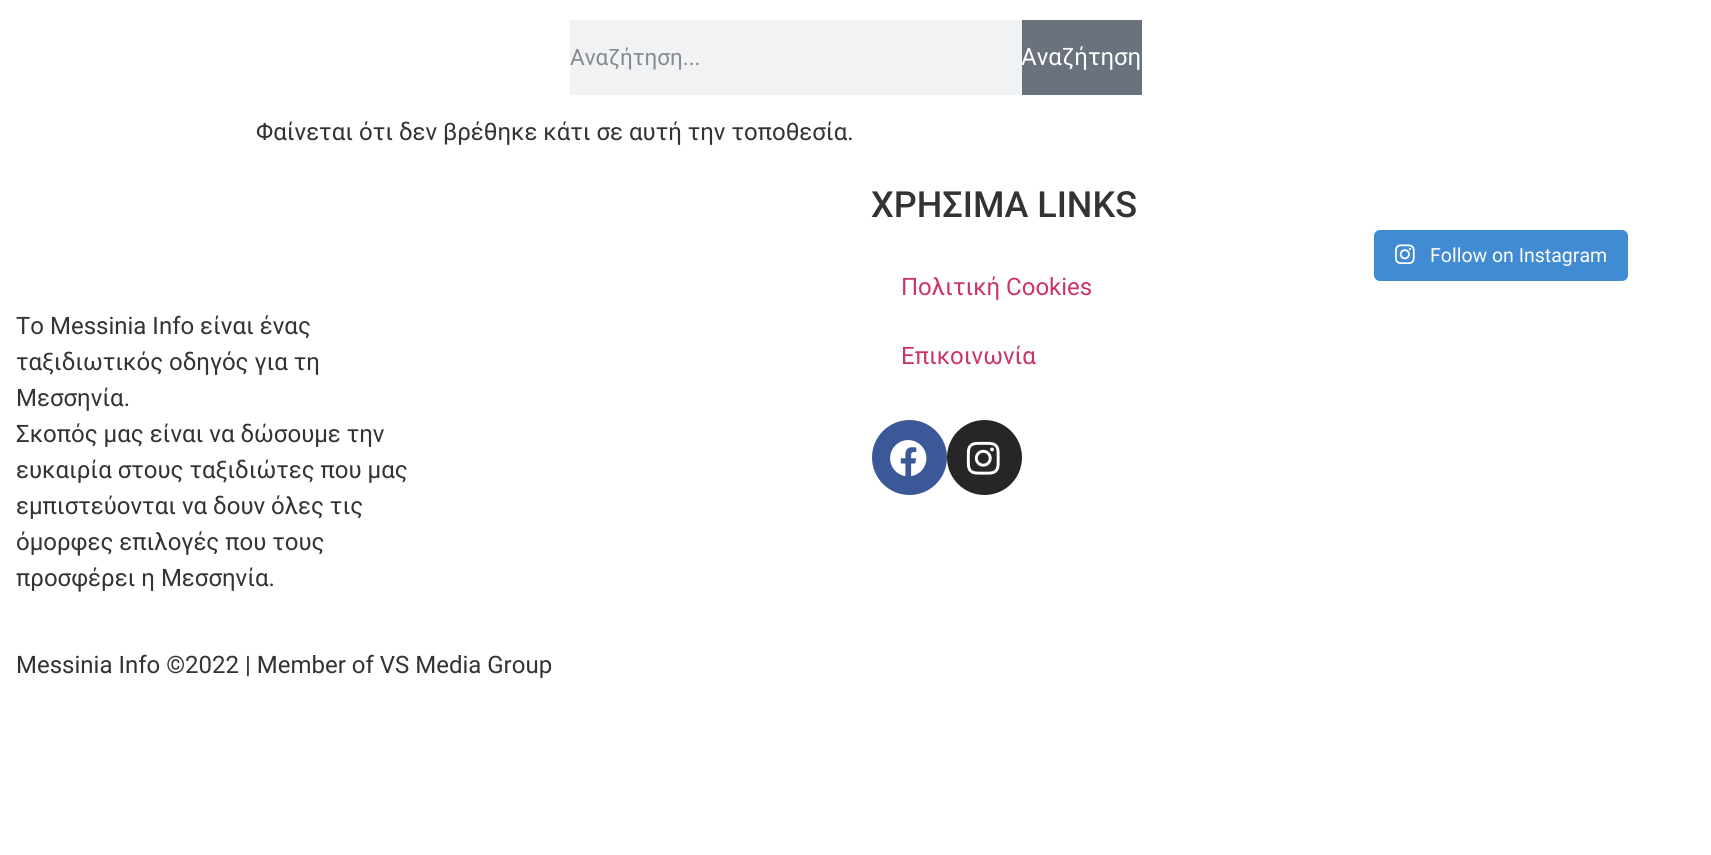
import math
import cairocffi as cairo

surface = cairo.ImageSurface(cairo.FORMAT_RGB24, 1711, 855)
ctx = cairo.Context(surface)
options = cairo.FontOptions()
options.set_hint_metrics(cairo.HINT_METRICS_OFF)
options.set_hint_style(cairo.HINT_STYLE_NONE)
ctx.set_font_options(options)
ctx.set_miter_limit(4)


def rgb(r, g, b):
    ctx.set_source_rgb(r / 255, g / 255, b / 255)


def face(family, size, italic, bold):
    ctx.select_font_face(family, cairo.FONT_SLANT_ITALIC if italic else cairo.FONT_SLANT_NORMAL, cairo.FONT_WEIGHT_BOLD if bold else cairo.FONT_WEIGHT_NORMAL)
    ctx.set_font_size(size)


def label(x, y, s):
    ctx.move_to(x, y)
    ctx.show_text(s)


def rect(x, y, w, h):
    ctx.rectangle(x, y, w, h)
    ctx.fill()


def rrect(x, y, w, h, r):
    ctx.new_sub_path()
    for i, (u, v) in enumerate([(x + w - r, y + h - r), (x + r, y + h - r), (x + r, y + r), (x + w - r, y + r)]):
        ctx.arc(u, v, r, i * math.pi / 2, (i + 1) * math.pi / 2)
    ctx.close_path()


def image(path, x, y, w, h):
    ctx.save()
    ctx.set_source_surface(cairo.ImageSurface.create_from_png(path), x, y)
    ctx.rectangle(x, y, w, h)
    ctx.fill()
    ctx.restore()


rgb(255, 255, 255)
ctx.paint()
rgb(241, 242, 243)
rect(570, 20, 452, 75)
face('Roboto', 22.5, 0, 0)
rgb(134, 138, 142)
label(570, 65, 'Αναζήτηση...')
rgb(105, 114, 125)
rect(1022, 20, 120, 75)
face('Roboto', 24, 0, 0)
rgb(255, 255, 255)
label(1021, 65, 'Αναζήτηση')
rgb(51, 51, 51)
label(256, 140, 'Φαίνεται ότι δεν βρέθηκε κάτι σε αυτή την τοποθεσία.')
face('Roboto Medium', 36, 0, 0)
label(871, 217, 'ΧΡΗΣΙΜΑ LINKS')
face('Roboto', 24, 0, 0)
rgb(204, 51, 102)
label(901, 295, 'Πολιτική Cookies')
label(901, 364, 'Επικοινωνία')
rgb(59, 89, 152)
ctx.new_path()
ctx.arc(909.5, 457.5, 37.5, 0, 2 * math.pi)
ctx.fill()
image('image0.png', 890, 440, 37, 37)
rgb(38, 38, 38)
ctx.arc(984.5, 457.5, 37.5, 0, 2 * math.pi)
ctx.fill()
image('image1.png', 966, 441, 34, 34)
rgb(64, 139, 209)
rrect(1374, 230, 254, 51, 6)
ctx.fill()
image('image2.png', 1395, 244, 20, 20)
face('Roboto', 19.5, 0, 0)
rgb(255, 255, 255)
label(1430, 262, 'Follow on Instagram')
face('Roboto', 24, 0, 0)
rgb(51, 51, 51)
label(16, 334, 'Το Messinia Info είναι ένας')
label(16, 370, 'ταξιδιωτικός οδηγός για τη')
label(16, 406, 'Μεσσηνία.')
label(16, 442, 'Σκοπός μας είναι να δώσουμε την')
label(16, 478, 'ευκαιρία στους ταξιδιώτες που μας')
label(16, 514, 'εμπιστεύονται να δουν όλες τις')
label(16, 550, 'όμορφες επιλογές που τους')
label(16, 586, 'προσφέρει η Μεσσηνία.')
label(16, 673, 'Messinia Info ©2022 | Member of VS Media Group')
surface.write_to_png('render.png')
